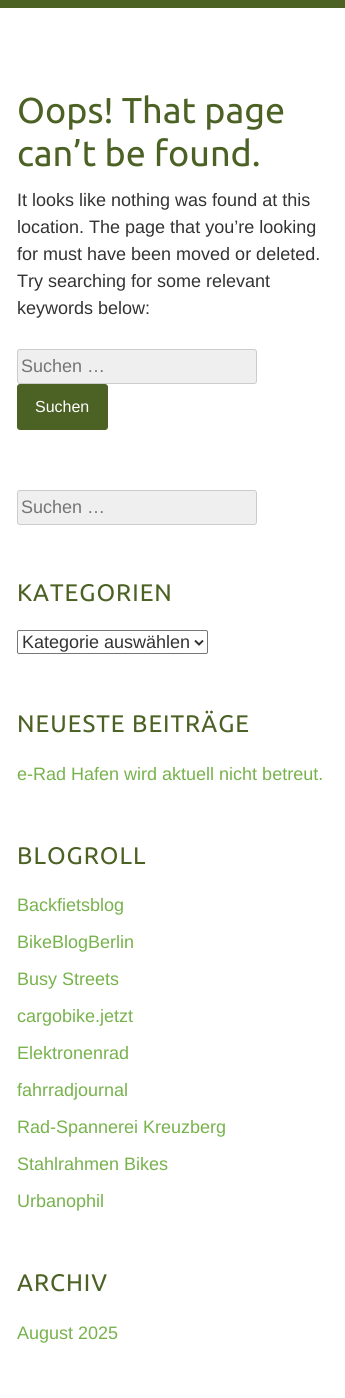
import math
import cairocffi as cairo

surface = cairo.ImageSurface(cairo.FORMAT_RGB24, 345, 1398)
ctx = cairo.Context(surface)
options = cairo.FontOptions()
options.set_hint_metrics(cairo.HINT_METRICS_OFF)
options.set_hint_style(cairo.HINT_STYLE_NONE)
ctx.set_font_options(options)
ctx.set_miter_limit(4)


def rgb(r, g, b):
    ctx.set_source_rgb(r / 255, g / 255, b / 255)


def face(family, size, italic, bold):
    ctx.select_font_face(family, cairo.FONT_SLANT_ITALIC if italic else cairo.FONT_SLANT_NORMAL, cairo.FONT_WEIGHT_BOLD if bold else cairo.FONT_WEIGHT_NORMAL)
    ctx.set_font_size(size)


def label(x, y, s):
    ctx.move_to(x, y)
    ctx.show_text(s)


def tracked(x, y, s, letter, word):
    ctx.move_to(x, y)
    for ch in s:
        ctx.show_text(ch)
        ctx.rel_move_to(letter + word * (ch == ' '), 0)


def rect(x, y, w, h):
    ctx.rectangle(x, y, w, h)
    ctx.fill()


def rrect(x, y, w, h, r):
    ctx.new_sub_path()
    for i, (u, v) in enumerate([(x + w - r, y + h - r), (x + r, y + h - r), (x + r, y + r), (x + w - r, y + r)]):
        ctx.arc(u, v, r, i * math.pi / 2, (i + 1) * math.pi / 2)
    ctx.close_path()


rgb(255, 255, 255)
ctx.paint()
rgb(76, 97, 36)
rect(0, 0, 345, 8)
face('Ubuntu', 36, 0, 0)
label(17, 123, 'Oops! That page')
label(17, 166, 'can’t be found.')
face('Liberation Sans', 18, 0, 0)
rgb(51, 51, 51)
label(17, 206, 'It looks like nothing was found at this')
label(17, 233, 'location. The page that you’re looking')
label(17, 260, 'for must have been moved or deleted.')
label(17, 287, 'Try searching for some relevant')
label(17, 314, 'keywords below:')
rgb(239, 239, 239)
rrect(17.5, 349.5, 239, 34, 2.5)
ctx.fill_preserve()
rgb(204, 204, 204)
ctx.set_line_width(1)
ctx.stroke()
rgb(117, 117, 117)
label(21, 372, 'Suchen …')
rgb(76, 97, 36)
rrect(17, 384, 91, 46, 3)
ctx.fill()
face('Liberation Sans', 16, 0, 0)
rgb(255, 255, 255)
label(35, 412, 'Suchen')
rgb(239, 239, 239)
rrect(17.5, 490.5, 239, 34, 2.5)
ctx.fill_preserve()
rgb(204, 204, 204)
ctx.stroke()
face('Liberation Sans', 18, 0, 0)
rgb(117, 117, 117)
label(21, 513, 'Suchen …')
face('Ubuntu', 24, 0, 0)
rgb(76, 97, 36)
tracked(17, 601, 'KATEGORIEN', 1, 0)
rrect(17.5, 630.5, 190, 23, 1.5)
rgb(118, 118, 118)
ctx.stroke()
ctx.new_path()
ctx.move_to(195, 640.5)
ctx.line_to(199, 644.5)
ctx.line_to(203, 640.5)
rgb(51, 51, 51)
ctx.set_line_width(2)
ctx.stroke()
face('Liberation Sans', 18, 0, 0)
label(22, 648, 'Kategorie auswählen')
face('Ubuntu', 24, 0, 0)
rgb(76, 97, 36)
tracked(17, 732, 'NEUESTE BEITRÄGE', 1, 0)
face('Liberation Sans', 18, 0, 0)
rgb(119, 178, 76)
label(17, 780, 'e-Rad Hafen wird aktuell nicht betreut.')
face('Ubuntu', 24, 0, 0)
rgb(76, 97, 36)
tracked(17, 864, 'BLOGROLL', 1, 0)
face('Liberation Sans', 18, 0, 0)
rgb(119, 178, 76)
label(17, 911, 'Backfietsblog')
label(17, 948, 'BikeBlogBerlin')
label(17, 985, 'Busy Streets')
label(17, 1022, 'cargobike.jetzt')
label(17, 1059, 'Elektronenrad')
label(17, 1096, 'fahrradjournal')
label(17, 1133, 'Rad-Spannerei Kreuzberg')
label(17, 1170, 'Stahlrahmen Bikes')
label(17, 1207, 'Urbanophil')
face('Ubuntu', 24, 0, 0)
rgb(76, 97, 36)
tracked(17, 1291, 'ARCHIV', 1, 0)
face('Liberation Sans', 18, 0, 0)
rgb(119, 178, 76)
label(17, 1339, 'August 2025')
surface.write_to_png('render.png')
